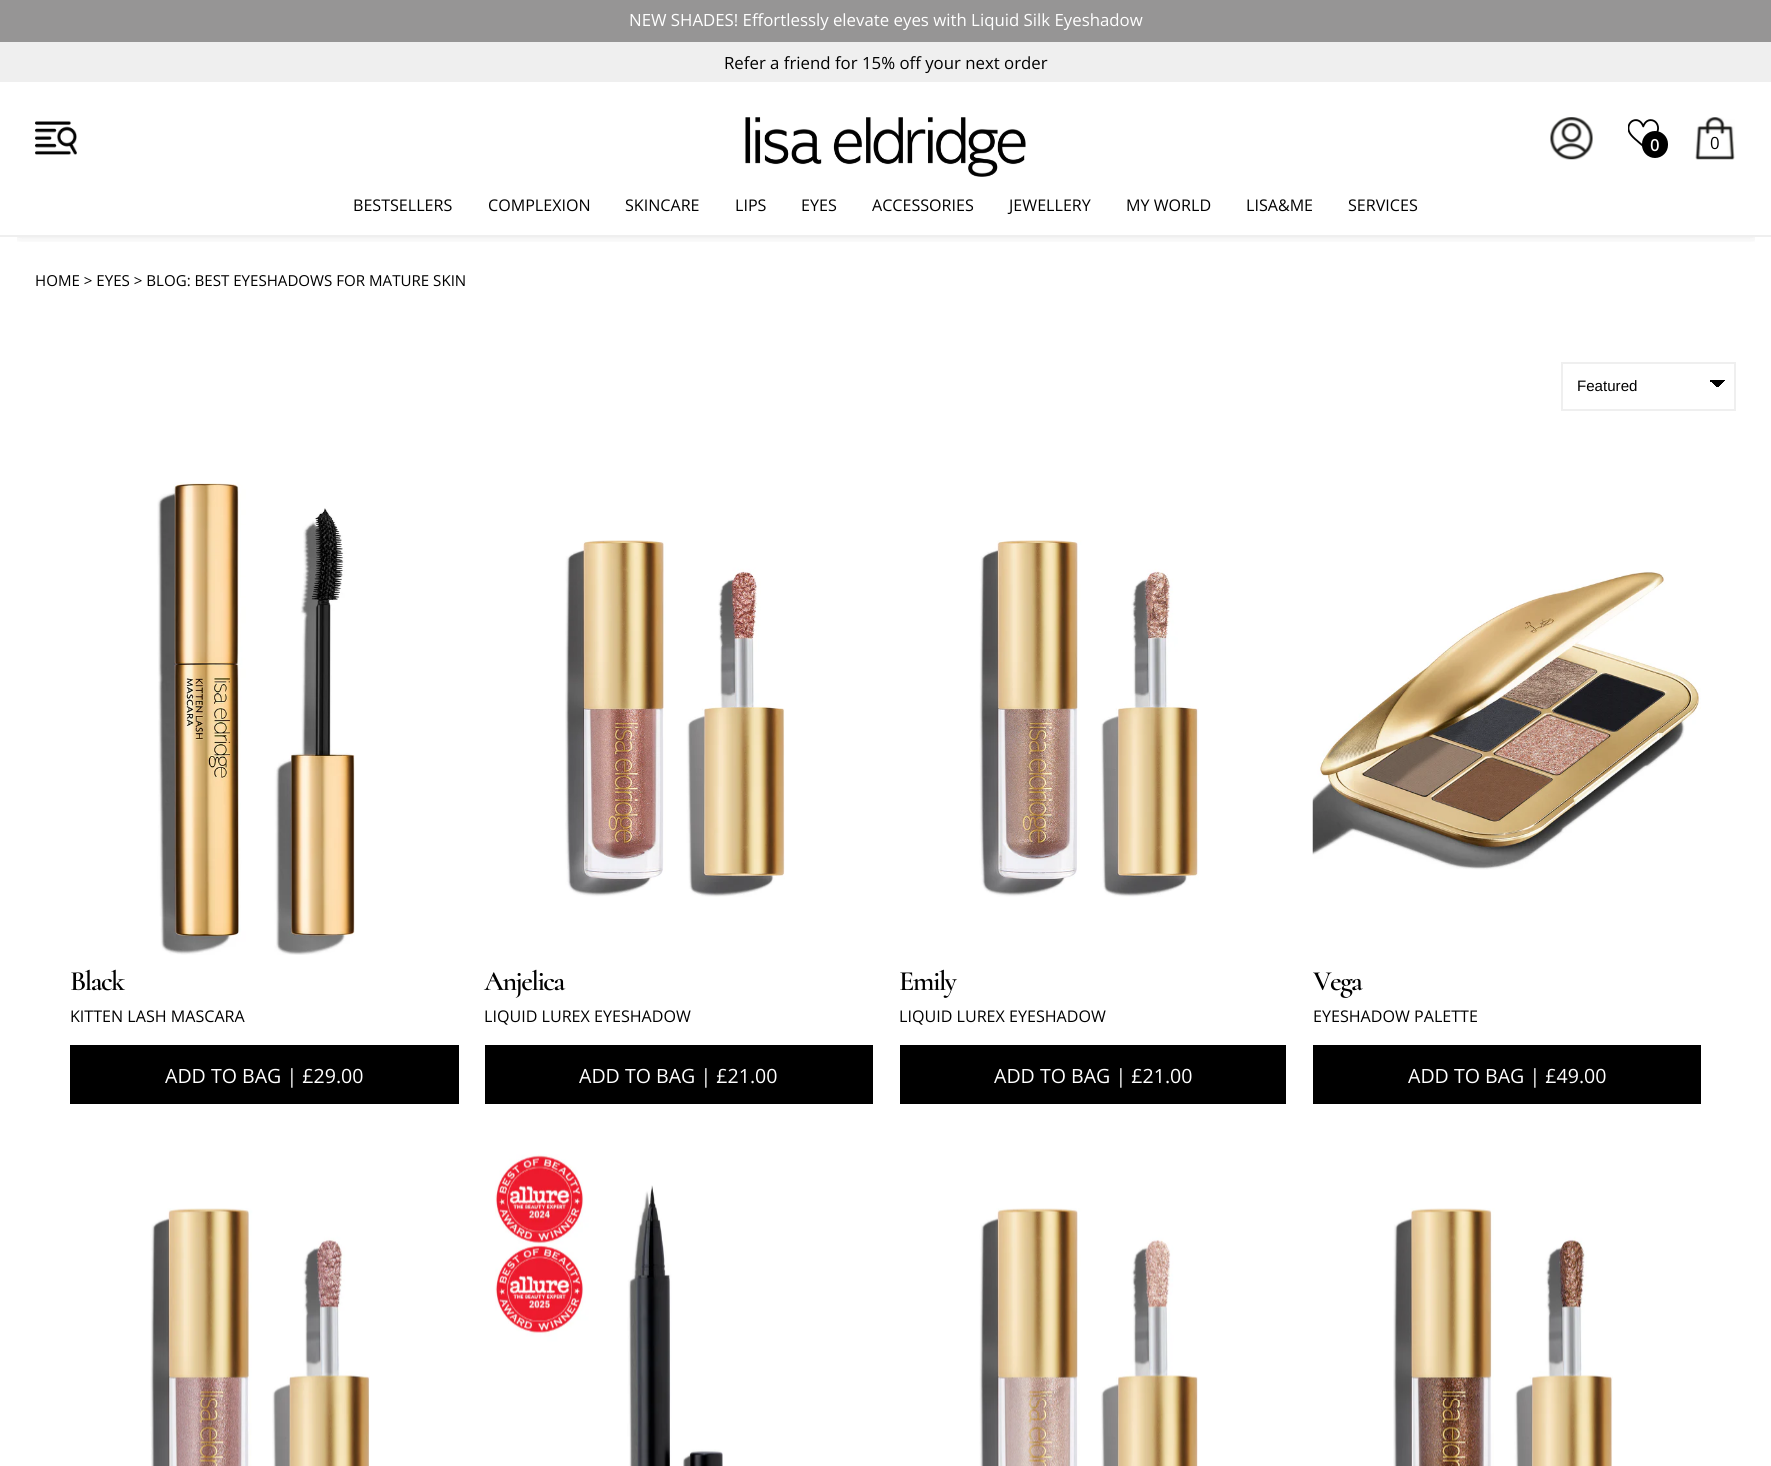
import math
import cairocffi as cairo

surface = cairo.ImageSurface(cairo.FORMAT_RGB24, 1771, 1466)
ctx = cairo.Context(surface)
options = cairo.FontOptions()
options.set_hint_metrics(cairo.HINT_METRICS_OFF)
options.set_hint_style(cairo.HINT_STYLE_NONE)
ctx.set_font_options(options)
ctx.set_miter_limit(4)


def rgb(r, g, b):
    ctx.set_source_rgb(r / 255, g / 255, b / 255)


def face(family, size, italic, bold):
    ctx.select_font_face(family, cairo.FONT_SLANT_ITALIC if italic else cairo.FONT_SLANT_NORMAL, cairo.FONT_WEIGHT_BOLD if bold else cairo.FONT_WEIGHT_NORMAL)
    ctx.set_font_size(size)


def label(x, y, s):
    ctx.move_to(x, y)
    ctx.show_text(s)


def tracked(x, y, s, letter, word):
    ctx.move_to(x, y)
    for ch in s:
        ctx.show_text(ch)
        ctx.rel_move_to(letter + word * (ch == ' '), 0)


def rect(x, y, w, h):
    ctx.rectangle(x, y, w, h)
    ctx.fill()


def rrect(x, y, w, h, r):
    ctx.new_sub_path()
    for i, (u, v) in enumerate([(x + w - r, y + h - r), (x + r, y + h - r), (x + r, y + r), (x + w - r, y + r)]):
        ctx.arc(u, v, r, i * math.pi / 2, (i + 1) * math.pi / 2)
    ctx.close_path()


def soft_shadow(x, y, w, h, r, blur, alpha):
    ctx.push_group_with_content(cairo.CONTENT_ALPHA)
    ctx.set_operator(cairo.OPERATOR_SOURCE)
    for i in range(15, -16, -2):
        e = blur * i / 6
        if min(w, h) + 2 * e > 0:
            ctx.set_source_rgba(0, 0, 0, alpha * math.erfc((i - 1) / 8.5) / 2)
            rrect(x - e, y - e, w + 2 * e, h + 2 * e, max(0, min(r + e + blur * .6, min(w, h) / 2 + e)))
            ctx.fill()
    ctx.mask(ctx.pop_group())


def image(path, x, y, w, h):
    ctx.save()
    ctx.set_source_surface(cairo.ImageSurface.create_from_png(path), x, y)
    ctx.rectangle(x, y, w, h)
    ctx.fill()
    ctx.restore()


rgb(255, 255, 255)
ctx.paint()
rgb(150, 149, 149)
rect(0, 0, 1771, 42)
face('Open Sans', 16.8, 0, 0)
rgb(255, 255, 255)
label(629, 26, 'NEW SHADES! Effortlessly elevate eyes with Liquid Silk Eyeshadow')
ctx.save()
ctx.rectangle(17, 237, 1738, 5)
ctx.clip()
rgb(0, 0, 0)
soft_shadow(18, 68, 1736, 160, 0, 9, 0.3)
ctx.restore()
rgb(239, 239, 239)
rect(0, 235, 1771, 2)
rect(0, 42, 1771, 40)
rgb(0, 0, 0)
label(724, 69, 'Refer a friend for 15% off your next order')
image('image0.png', 35, 121, 42, 34)
image('image1.png', 745, 117, 281, 60)
image('image2.png', 1550, 117, 43, 43)
image('image3.png', 1628, 119, 31, 28)
rrect(1642, 131, 26, 27, 13)
ctx.fill()
face('Open Sans', 16, 0, 1)
rgb(255, 255, 255)
label(1650, 151, '0')
image('image4.png', 1695, 117, 40, 43)
face('Open Sans', 16.8, 0, 0)
rgb(0, 0, 0)
label(1710, 149, '0')
face('Open Sans', 16.1, 0, 0)
label(353, 211, 'BESTSELLERS')
label(488, 211, 'COMPLEXION')
label(625, 211, 'SKINCARE')
label(735, 211, 'LIPS')
label(801, 211, 'EYES')
label(872, 211, 'ACCESSORIES')
label(1009, 211, 'JEWELLERY')
label(1126, 211, 'MY WORLD')
label(1246, 211, 'LISA&ME')
label(1348, 211, 'SERVICES')
face('Open Sans', 15.1, 0, 0)
label(35, 286, 'HOME > EYES > BLOG: BEST EYESHADOWS FOR MATURE SKIN')
gradient = cairo.LinearGradient(1717, 379, 1726, 388)
gradient.add_color_stop_rgba(0.5, 0, 0, 0, 1)
gradient.add_color_stop_rgba(0.5, 1, 1, 1, 1)
ctx.set_source(gradient)
rect(1717, 380, 8, 7)
gradient = cairo.LinearGradient(1708, 388, 1717, 379)
gradient.add_color_stop_rgba(0.5, 1, 1, 1, 1)
gradient.add_color_stop_rgba(0.5, 0, 0, 0, 1)
ctx.set_source(gradient)
rect(1710, 380, 7, 7)
ctx.rectangle(1562, 363, 173, 47)
rgb(239, 239, 239)
ctx.stroke()
face('Liberation Sans', 15.1, 0, 0)
rgb(0, 0, 0)
label(1577, 391, 'Featured')
image('image5.png', 157, 482, 198, 473)
face('Cormorant SemiBold', 28, 0, 0)
tracked(70, 990, 'Black', -1.5, 0)
face('Open Sans', 16.1, 0, 0)
label(70, 1022, 'KITTEN LASH MASCARA')
rect(70, 1045, 389, 59)
face('Open Sans', 19.6, 0, 0)
rgb(255, 255, 255)
label(165, 1083, 'ADD TO BAG | £29.00')
image('image6.png', 565, 540, 220, 357)
face('Cormorant SemiBold', 28, 0, 0)
rgb(0, 0, 0)
tracked(484, 990, 'Anjelica', -1.5, 0)
face('Open Sans', 16.1, 0, 0)
label(484, 1022, 'LIQUID LUREX EYESHADOW')
rect(485, 1045, 388, 59)
face('Open Sans', 19.6, 0, 0)
rgb(255, 255, 255)
label(579, 1083, 'ADD TO BAG | £21.00')
image('image7.png', 979, 540, 220, 357)
face('Cormorant SemiBold', 28, 0, 0)
rgb(0, 0, 0)
tracked(899, 990, 'Emily', -1.5, 0)
face('Open Sans', 16.1, 0, 0)
label(899, 1022, 'LIQUID LUREX EYESHADOW')
rect(900, 1045, 386, 59)
face('Open Sans', 19.6, 0, 0)
rgb(255, 255, 255)
label(994, 1083, 'ADD TO BAG | £21.00')
image('image8.png', 1312, 570, 389, 300)
face('Cormorant SemiBold', 28, 0, 0)
rgb(0, 0, 0)
tracked(1313, 990, 'Vega', -1.5, 0)
face('Open Sans', 16.1, 0, 0)
label(1313, 1022, 'EYESHADOW PALETTE')
rect(1313, 1045, 388, 59)
face('Open Sans', 19.6, 0, 0)
rgb(255, 255, 255)
label(1408, 1083, 'ADD TO BAG | £49.00')
image('image9.png', 150, 1208, 220, 258)
image('image10.png', 495, 1154, 228, 312)
image('image11.png', 979, 1208, 219, 258)
image('image12.png', 1393, 1208, 220, 258)
surface.write_to_png('render.png')
